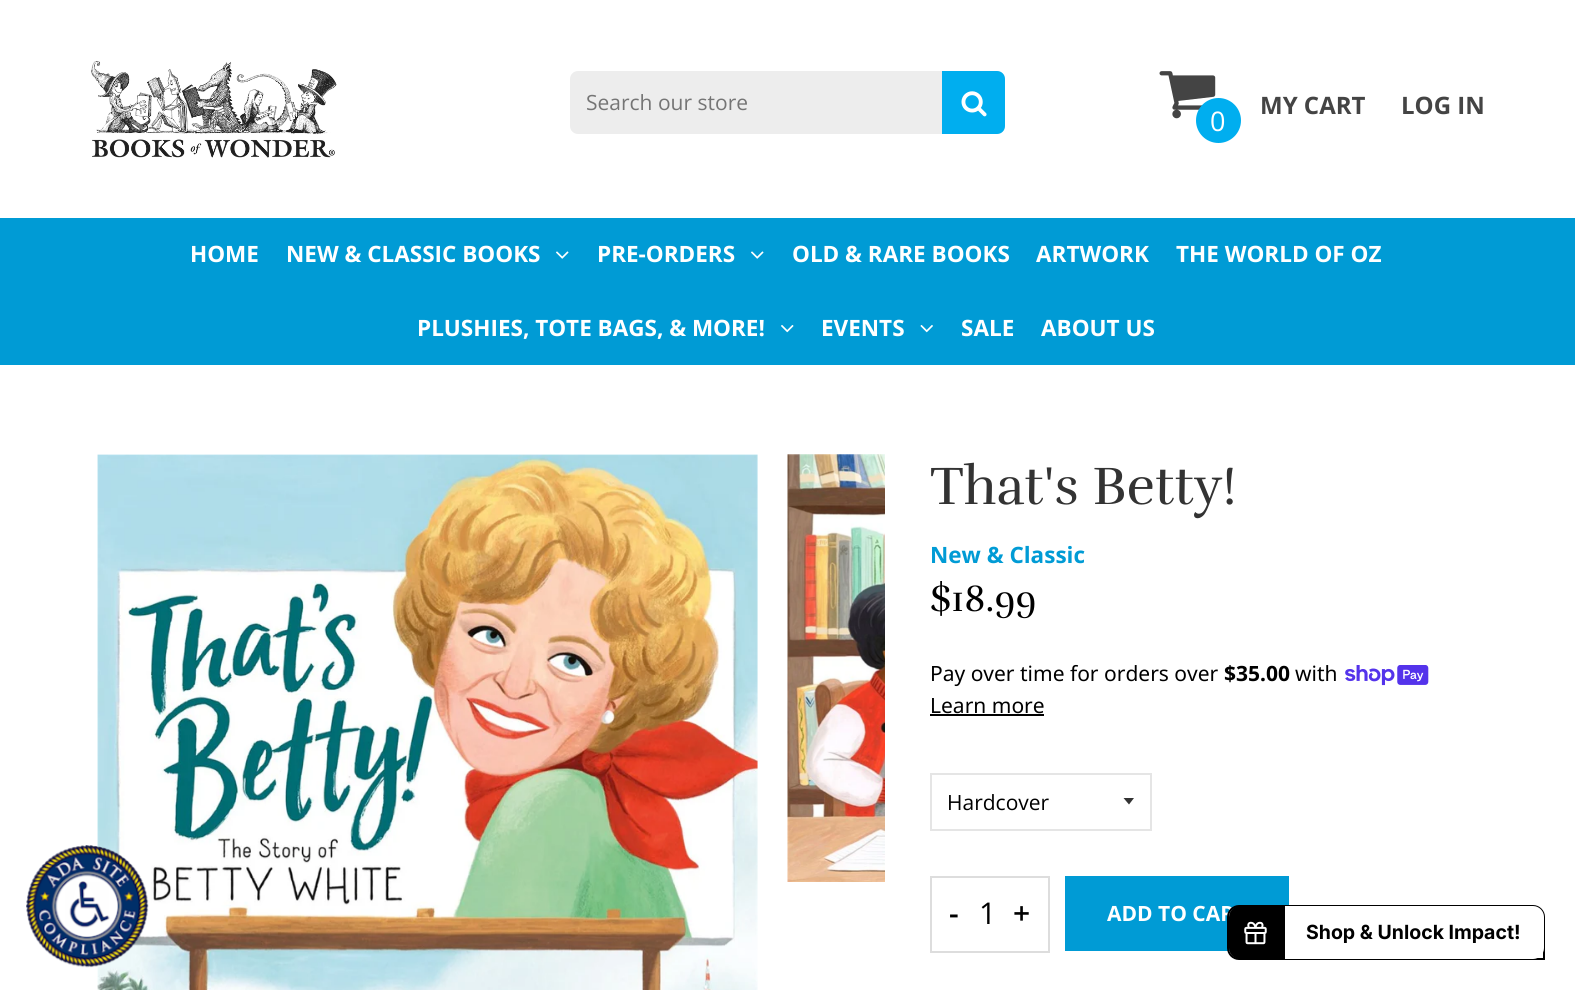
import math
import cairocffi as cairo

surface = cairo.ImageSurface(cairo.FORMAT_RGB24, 1575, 990)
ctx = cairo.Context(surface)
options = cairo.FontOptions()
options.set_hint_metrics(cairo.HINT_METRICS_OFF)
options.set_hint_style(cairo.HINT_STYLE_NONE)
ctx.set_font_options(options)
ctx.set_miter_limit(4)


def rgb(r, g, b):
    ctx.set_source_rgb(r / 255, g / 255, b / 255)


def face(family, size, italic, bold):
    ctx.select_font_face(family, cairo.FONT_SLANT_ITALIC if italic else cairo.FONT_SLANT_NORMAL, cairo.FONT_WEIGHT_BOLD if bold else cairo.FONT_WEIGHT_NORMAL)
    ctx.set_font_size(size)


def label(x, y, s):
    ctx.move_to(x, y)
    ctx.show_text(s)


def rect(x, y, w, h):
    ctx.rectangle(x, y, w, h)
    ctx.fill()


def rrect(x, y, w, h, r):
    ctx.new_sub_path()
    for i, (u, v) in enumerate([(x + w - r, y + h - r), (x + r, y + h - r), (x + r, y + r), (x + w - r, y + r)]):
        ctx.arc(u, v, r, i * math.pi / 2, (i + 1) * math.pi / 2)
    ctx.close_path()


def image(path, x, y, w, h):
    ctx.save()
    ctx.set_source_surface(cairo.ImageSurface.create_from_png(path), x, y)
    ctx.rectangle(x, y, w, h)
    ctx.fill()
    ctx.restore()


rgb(255, 255, 255)
ctx.paint()
image('image7.png', 88, 454, 670, 536)
image('image0.png', 26, 845, 123, 123)
image('image1.png', 91, 61, 246, 97)
rgb(237, 237, 237)
rrect(571, 72, 433, 61, 7)
ctx.fill_preserve()
ctx.stroke()
face('Open Sans', 21, 0, 0)
rgb(117, 117, 117)
label(586, 110, 'Search our store')
rgb(0, 174, 239)
ctx.new_path()
ctx.move_to(942, 71)
ctx.line_to(997, 71)
ctx.curve_to(1001.5, 71, 1005, 74.5, 1005, 79)
ctx.line_to(1005, 126)
ctx.curve_to(1005, 130.5, 1001.5, 134, 997, 134)
ctx.line_to(942, 134)
ctx.close_path()
ctx.fill()
image('image2.png', 961, 91, 26, 26)
image('image3.png', 1159, 71, 57, 48)
face('Open Sans', 24, 0, 1)
rgb(68, 68, 68)
label(1260, 114, 'MY CART')
label(1401, 114, 'LOG IN')
rgb(0, 174, 239)
ctx.new_path()
ctx.arc(1218.5, 120.5, 22.5, 0, 2 * math.pi)
ctx.fill()
face('Open Sans', 27, 0, 0)
rgb(255, 255, 255)
label(1210, 131, '0')
rgb(0, 155, 213)
rect(0, 218, 1575, 147)
face('Open Sans', 22.5, 0, 1)
rgb(255, 255, 255)
label(190, 262, 'HOME')
label(286, 262, 'NEW & CLASSIC BOOKS')
image('image4.png', 556, 251, 13, 8)
label(597, 262, 'PRE-ORDERS')
image('image4.png', 751, 251, 13, 8)
label(792, 262, 'OLD & RARE BOOKS')
label(1036, 262, 'ARTWORK')
label(1176, 262, 'THE WORLD OF OZ')
label(417, 336, 'PLUSHIES, TOTE BAGS, & MORE!')
image('image5.png', 781, 325, 13, 8)
label(821, 336, 'EVENTS')
image('image6.png', 920, 325, 13, 8)
label(961, 336, 'SALE')
label(1041, 336, 'ABOUT US')
image('image8.png', 787, 454, 98, 428)
face('Rufina', 54, 0, 0)
rgb(51, 51, 51)
label(930, 504, 'That\'s Betty!')
face('Open Sans', 22.5, 0, 1)
rgb(0, 155, 213)
label(930, 563, 'New & Classic')
face('Rufina', 37.5, 0, 0)
rgb(0, 0, 0)
label(930, 611, '$18.99')
face('Noto Sans', 21, 0, 0)
label(930, 681, 'Pay over time for orders over')
face('Noto Sans', 21, 0, 1)
label(1224, 681, '$35.00')
face('Noto Sans', 21, 0, 0)
label(1295, 681, 'with')
image('image9.png', 1345, 665, 84, 21)
label(930, 713, 'Learn more')
rect(930, 714, 114, 2)
rgb(51, 51, 51)
ctx.new_path()
ctx.move_to(1123.5, 798)
ctx.line_to(1129, 804.5)
ctx.line_to(1134, 798)
ctx.close_path()
ctx.fill()
ctx.rectangle(931, 774, 220, 56)
rgb(229, 229, 229)
ctx.stroke()
face('Open Sans', 21, 0, 0)
rgb(0, 0, 0)
label(947, 810, 'Hardcover')
ctx.rectangle(931, 877, 118, 75)
rgb(221, 221, 221)
ctx.stroke()
face('Open Sans SemiBold', 30, 0, 0)
rgb(0, 0, 0)
label(949, 924, '-')
face('Open Sans', 30, 0, 0)
label(979, 924, '1')
face('Open Sans SemiBold', 30, 0, 0)
label(1013, 924, '+')
rgb(0, 155, 213)
rect(1065, 876, 224, 75)
face('Open Sans', 21, 0, 1)
rgb(255, 255, 255)
label(1107, 921, 'ADD TO CAR')
ctx.new_path()
ctx.move_to(1239, 906)
ctx.line_to(1533, 906)
ctx.curve_to(1539, 906, 1544, 911, 1544, 917)
ctx.line_to(1544, 959)
ctx.line_to(1239, 959)
ctx.curve_to(1233, 959, 1228, 954, 1228, 948)
ctx.line_to(1228, 917)
ctx.curve_to(1228, 911, 1233, 906, 1239, 906)
ctx.close_path()
rgb(0, 0, 0)
ctx.stroke()
ctx.new_path()
ctx.move_to(1240, 906)
ctx.line_to(1283, 906)
ctx.line_to(1283, 959)
ctx.line_to(1240, 959)
ctx.curve_to(1234, 959, 1229, 954, 1229, 948)
ctx.line_to(1229, 917)
ctx.curve_to(1229, 911, 1234, 906, 1240, 906)
ctx.close_path()
ctx.fill()
image('image10.png', 1244, 921, 23, 24)
rgb(255, 255, 255)
ctx.new_path()
ctx.move_to(1283, 906)
ctx.line_to(1533, 906)
ctx.curve_to(1539, 906, 1544, 911, 1544, 917)
ctx.line_to(1544, 948)
ctx.curve_to(1544, 954, 1539, 959, 1533, 959)
ctx.line_to(1283, 959)
ctx.close_path()
ctx.fill()
rgb(0, 0, 0)
rect(1283, 906, 2, 53)
face('Inter', 19.5, 0, 1)
label(1306, 939, 'Shop & Unlock Impact!')
surface.write_to_png('render.png')
